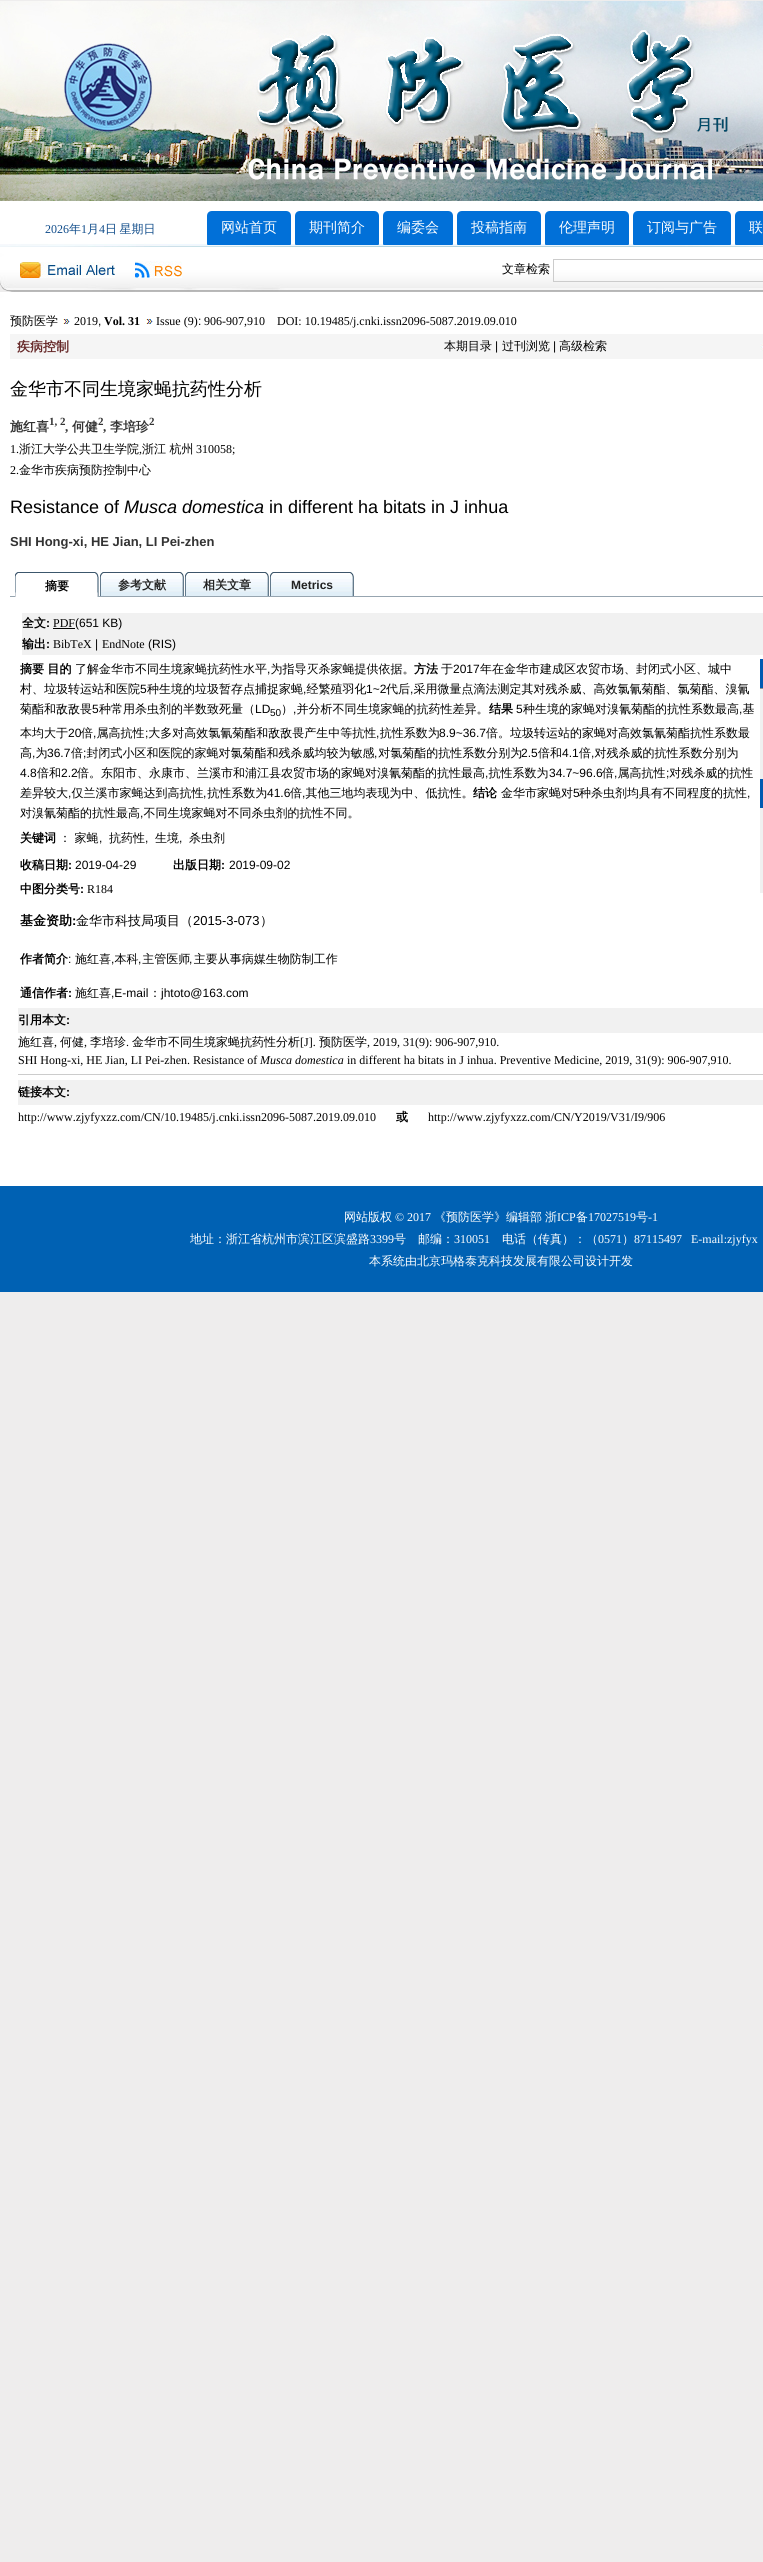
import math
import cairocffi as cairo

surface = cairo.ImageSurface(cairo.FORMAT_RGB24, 763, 2562)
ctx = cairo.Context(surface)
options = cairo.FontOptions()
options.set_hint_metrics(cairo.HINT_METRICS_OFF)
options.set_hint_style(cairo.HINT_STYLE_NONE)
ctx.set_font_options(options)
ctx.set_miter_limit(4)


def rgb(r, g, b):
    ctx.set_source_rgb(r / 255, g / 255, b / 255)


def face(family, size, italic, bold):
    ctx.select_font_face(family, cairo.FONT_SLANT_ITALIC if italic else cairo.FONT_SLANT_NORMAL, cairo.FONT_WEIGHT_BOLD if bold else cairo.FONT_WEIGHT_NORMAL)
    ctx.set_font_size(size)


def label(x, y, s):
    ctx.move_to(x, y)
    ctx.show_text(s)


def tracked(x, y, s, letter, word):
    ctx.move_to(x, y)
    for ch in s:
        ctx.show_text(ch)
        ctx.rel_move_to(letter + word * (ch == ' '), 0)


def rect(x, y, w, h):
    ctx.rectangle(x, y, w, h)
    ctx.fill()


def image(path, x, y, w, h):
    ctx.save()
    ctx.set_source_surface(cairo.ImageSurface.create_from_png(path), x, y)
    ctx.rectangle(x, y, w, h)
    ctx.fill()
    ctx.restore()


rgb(238, 237, 237)
ctx.paint()
image('image0.png', 0, 1, 763, 200)
rgb(255, 255, 255)
rect(0, 201, 763, 10)
image('image1.png', 0, 211, 763, 40)
face('Liberation Serif', 12, 0, 0)
rgb(16, 76, 138)
label(45, 233, '2026')
face('WenQuanYi Zen Hei Medium', 12, 0, 0)
label(69, 233, '年')
face('Liberation Serif', 12, 0, 0)
label(81, 233, '1')
face('WenQuanYi Zen Hei Medium', 12, 0, 0)
label(87, 233, '月')
face('Liberation Serif', 12, 0, 0)
label(99, 233, '4')
face('WenQuanYi Zen Hei Medium', 12, 0, 0)
tracked(105, 233, '日 星期日', 0, -1)
rgb(1, 112, 216)
ctx.new_path()
ctx.move_to(212, 211)
ctx.line_to(286, 211)
ctx.curve_to(289, 211, 291, 213, 291, 216)
ctx.line_to(291, 244)
ctx.curve_to(291, 244.5, 290.5, 245, 290, 245)
ctx.line_to(208, 245)
ctx.curve_to(207.5, 245, 207, 244.5, 207, 244)
ctx.line_to(207, 216)
ctx.curve_to(207, 213, 209, 211, 212, 211)
ctx.close_path()
ctx.fill()
face('WenQuanYi Zen Hei Medium', 14, 0, 0)
rgb(255, 255, 255)
label(221, 232, '网站首页')
rgb(1, 112, 216)
ctx.new_path()
ctx.move_to(300, 211)
ctx.line_to(374, 211)
ctx.curve_to(377, 211, 379, 213, 379, 216)
ctx.line_to(379, 244)
ctx.curve_to(379, 244.5, 378.5, 245, 378, 245)
ctx.line_to(296, 245)
ctx.curve_to(295.5, 245, 295, 244.5, 295, 244)
ctx.line_to(295, 216)
ctx.curve_to(295, 213, 297, 211, 300, 211)
ctx.close_path()
ctx.fill()
rgb(255, 255, 255)
label(309, 232, '期刊简介')
rgb(1, 112, 216)
ctx.new_path()
ctx.move_to(388, 211)
ctx.line_to(448, 211)
ctx.curve_to(451, 211, 453, 213, 453, 216)
ctx.line_to(453, 244)
ctx.curve_to(453, 244.5, 452.5, 245, 452, 245)
ctx.line_to(384, 245)
ctx.curve_to(383.5, 245, 383, 244.5, 383, 244)
ctx.line_to(383, 216)
ctx.curve_to(383, 213, 385, 211, 388, 211)
ctx.close_path()
ctx.fill()
rgb(255, 255, 255)
label(397, 232, '编委会')
rgb(1, 112, 216)
ctx.new_path()
ctx.move_to(462, 211)
ctx.line_to(536, 211)
ctx.curve_to(539, 211, 541, 213, 541, 216)
ctx.line_to(541, 244)
ctx.curve_to(541, 244.5, 540.5, 245, 540, 245)
ctx.line_to(458, 245)
ctx.curve_to(457.5, 245, 457, 244.5, 457, 244)
ctx.line_to(457, 216)
ctx.curve_to(457, 213, 459, 211, 462, 211)
ctx.close_path()
ctx.fill()
rgb(255, 255, 255)
label(471, 232, '投稿指南')
rgb(1, 112, 216)
ctx.new_path()
ctx.move_to(550, 211)
ctx.line_to(624, 211)
ctx.curve_to(627, 211, 629, 213, 629, 216)
ctx.line_to(629, 244)
ctx.curve_to(629, 244.5, 628.5, 245, 628, 245)
ctx.line_to(546, 245)
ctx.curve_to(545.5, 245, 545, 244.5, 545, 244)
ctx.line_to(545, 216)
ctx.curve_to(545, 213, 547, 211, 550, 211)
ctx.close_path()
ctx.fill()
rgb(255, 255, 255)
label(559, 232, '伦理声明')
rgb(1, 112, 216)
ctx.new_path()
ctx.move_to(638, 211)
ctx.line_to(726, 211)
ctx.curve_to(729, 211, 731, 213, 731, 216)
ctx.line_to(731, 244)
ctx.curve_to(731, 244.5, 730.5, 245, 730, 245)
ctx.line_to(634, 245)
ctx.curve_to(633.5, 245, 633, 244.5, 633, 244)
ctx.line_to(633, 216)
ctx.curve_to(633, 213, 635, 211, 638, 211)
ctx.close_path()
ctx.fill()
rgb(255, 255, 255)
label(647, 232, '订阅与广告')
rgb(1, 112, 216)
ctx.new_path()
ctx.move_to(740, 211)
ctx.line_to(763, 211)
ctx.curve_to(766, 211, 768, 213, 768, 216)
ctx.line_to(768, 244)
ctx.curve_to(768, 244.5, 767.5, 245, 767, 245)
ctx.line_to(736, 245)
ctx.curve_to(735.5, 245, 735, 244.5, 735, 244)
ctx.line_to(735, 216)
ctx.curve_to(735, 213, 737, 211, 740, 211)
ctx.close_path()
ctx.fill()
rgb(255, 255, 255)
label(749, 232, '联')
image('image2.png', 0, 251, 763, 58)
image('image3.png', 20, 262, 95, 16)
image('image4.png', 135, 261, 47, 17)
face('WenQuanYi Zen Hei Medium', 12, 0, 0)
rgb(0, 0, 0)
label(502, 273, '文章检索')
ctx.rectangle(553.5, 259.5, 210, 22)
rgb(204, 204, 204)
ctx.set_line_width(1)
ctx.stroke()
rgb(255, 255, 255)
rect(0, 309, 763, 877)
rgb(0, 0, 0)
label(10, 325, '预防医学')
image('image5.png', 63, 319, 7, 5)
face('Liberation Serif', 12, 0, 0)
label(74, 325, '2019')
face('Liberation Serif', 12, 0, 1)
label(104, 325, 'Vol. 31')
image('image5.png', 146, 319, 7, 5)
face('Liberation Serif', 12, 0, 0)
label(156, 325, 'Issue (9)')
face('Liberation Sans', 12, 0, 0)
label(198, 325, ':')
face('Liberation Serif', 12, 0, 0)
label(204, 325, '906-907,910    DOI: 10.19485/j.cnki.issn2096-5087.2019.09.010')
face('Liberation Sans', 12, 0, 0)
label(98, 325, ',')
rgb(245, 245, 245)
rect(10, 334, 753, 25)
face('WenQuanYi Zen Hei', 13, 0, 1)
rgb(102, 40, 40)
label(17, 351, '疾病控制')
face('WenQuanYi Zen Hei Medium', 12, 0, 0)
rgb(0, 0, 0)
label(444, 350, '本期目录')
face('Liberation Sans', 12, 0, 0)
label(495, 350, '|')
face('WenQuanYi Zen Hei Medium', 12, 0, 0)
label(502, 350, '过刊浏览')
face('Liberation Sans', 12, 0, 0)
label(553, 350, '|')
face('WenQuanYi Zen Hei Medium', 12, 0, 0)
label(559, 350, '高级检索')
image('image6.png', 760, 343, 3, 8)
face('WenQuanYi Zen Hei Medium', 18, 0, 0)
label(10, 395, '金华市不同生境家蝇抗药性分析')
face('WenQuanYi Zen Hei', 13, 0, 1)
rgb(51, 51, 51)
label(10, 431, '施红喜')
face('Liberation Serif', 11, 0, 1)
label(49, 425, '1, 2')
face('Liberation Serif', 13, 0, 1)
label(65, 431, ',')
face('WenQuanYi Zen Hei', 13, 0, 1)
label(72, 431, '何健')
face('Liberation Serif', 11, 0, 1)
label(98, 425, '2')
face('Liberation Serif', 13, 0, 1)
label(103, 431, ',')
face('WenQuanYi Zen Hei', 13, 0, 1)
label(110, 431, '李培珍')
face('Liberation Serif', 11, 0, 1)
label(149, 425, '2')
face('Liberation Serif', 12, 0, 0)
rgb(0, 0, 0)
label(10, 453, '1.')
face('WenQuanYi Zen Hei Medium', 12, 0, 0)
label(19, 453, '浙江大学公共卫生学院')
face('Liberation Serif', 12, 0, 0)
label(139, 453, ',')
face('WenQuanYi Zen Hei Medium', 12, 0, 0)
label(142, 453, '浙江 杭州')
face('Liberation Serif', 12, 0, 0)
label(196, 453, '310058;')
label(10, 474, '2.')
face('WenQuanYi Zen Hei Medium', 12, 0, 0)
label(19, 474, '金华市疾病预防控制中心')
face('Liberation Sans', 18, 0, 0)
label(10, 513, 'Resistance of')
face('Liberation Sans', 18, 1, 0)
label(124, 513, 'Musca domestica')
face('Liberation Sans', 18, 0, 0)
label(269, 513, 'in different ha bitats in J inhua')
face('Liberation Sans', 13, 0, 1)
rgb(51, 51, 51)
label(10, 546, 'SHI Hong-xi, HE Jian, LI Pei-zhen')
rgb(151, 165, 176)
rect(10, 596, 753, 1)
image('image7.png', 59, 572, 40, 25)
image('image8.png', 15, 572, 44, 25)
face('WenQuanYi Zen Hei', 12, 0, 1)
rgb(0, 0, 0)
label(45, 590, '摘要')
image('image9.png', 144, 572, 40, 24)
image('image10.png', 100, 572, 44, 24)
rgb(34, 34, 34)
label(118, 589, '参考文献')
image('image9.png', 229, 572, 40, 24)
image('image10.png', 185, 572, 44, 24)
label(203, 589, '相关文章')
image('image9.png', 314, 572, 40, 24)
image('image10.png', 270, 572, 44, 24)
face('Liberation Sans', 12, 0, 1)
label(291, 589, 'Metrics')
rgb(241, 241, 241)
rect(22, 613, 741, 42)
face('WenQuanYi Zen Hei', 12, 0, 1)
rgb(0, 0, 0)
label(22, 627, '全文')
face('Liberation Sans', 12, 0, 1)
label(46, 627, ':')
face('Liberation Serif', 12, 0, 0)
label(53, 627, 'PDF')
rect(53, 628, 22, 1)
face('Liberation Sans', 12, 0, 0)
label(75, 627, '(651 KB)')
face('WenQuanYi Zen Hei', 12, 0, 1)
label(22, 648, '输出')
face('Liberation Sans', 12, 0, 1)
label(46, 648, ':')
face('Liberation Serif', 12, 0, 0)
label(53, 648, 'BibTeX')
face('Liberation Sans', 12, 0, 0)
label(95, 648, '|')
face('Liberation Serif', 12, 0, 0)
label(102, 648, 'EndNote')
face('Liberation Sans', 12, 0, 0)
label(148, 648, '(RIS)')
face('WenQuanYi Zen Hei', 12, 0, 1)
label(20, 673, '摘要 目的')
face('WenQuanYi Zen Hei Medium', 12, 0, 0)
label(75, 673, '了解金华市不同生境家蝇抗药性水平 为指导灭杀家蝇提供依据。')
face('WenQuanYi Zen Hei', 12, 0, 1)
label(414, 673, '方法')
face('WenQuanYi Zen Hei Medium', 12, 0, 0)
label(441, 673, '于')
face('Liberation Sans', 12, 0, 0)
label(453, 673, '2017')
face('WenQuanYi Zen Hei Medium', 12, 0, 0)
label(480, 673, '年在金华市建成区农贸市场、封闭式小区、城中')
face('Liberation Sans', 12, 0, 0)
label(267, 673, ',')
face('WenQuanYi Zen Hei Medium', 12, 0, 0)
label(20, 693, '村、垃圾转运站和医院')
face('Liberation Sans', 12, 0, 0)
label(140, 693, '5')
face('WenQuanYi Zen Hei Medium', 12, 0, 0)
label(147, 693, '种生境的垃圾暂存点捕捉家蝇 经繁殖羽化')
face('Liberation Sans', 12, 0, 0)
label(366, 693, '1~2')
face('WenQuanYi Zen Hei Medium', 12, 0, 0)
label(386, 693, '代后 采用微量点滴法测定其对残杀威、高效氯氰菊酯、氯菊酯、溴氰')
face('Liberation Sans', 12, 0, 0)
label(303, 693, ',')
label(410, 693, ',')
face('WenQuanYi Zen Hei Medium', 12, 0, 0)
label(20, 713, '菊酯和敌敌畏')
face('Liberation Sans', 12, 0, 0)
label(92, 713, '5')
face('WenQuanYi Zen Hei Medium', 12, 0, 0)
label(99, 713, '种常用杀虫剂的半数致死量（')
face('Liberation Sans', 12, 0, 0)
label(255, 713, 'LD')
face('Liberation Sans', 10, 0, 0)
label(270, 716, '50')
face('WenQuanYi Zen Hei Medium', 12, 0, 0)
label(281, 713, '） 并分析不同生境家蝇的抗药性差异。')
face('WenQuanYi Zen Hei', 12, 0, 1)
label(489, 713, '结果')
face('Liberation Sans', 12, 0, 0)
label(516, 713, '5')
face('WenQuanYi Zen Hei Medium', 12, 0, 0)
label(523, 713, '种生境的家蝇对溴氰菊酯的抗性系数最高 基')
face('Liberation Sans', 12, 0, 0)
label(293, 713, ',')
label(739, 713, ',')
face('WenQuanYi Zen Hei Medium', 12, 0, 0)
label(20, 737, '本均大于')
face('Liberation Sans', 12, 0, 0)
label(68, 737, '20')
face('WenQuanYi Zen Hei Medium', 12, 0, 0)
label(81, 737, '倍 属高抗性 大多对高效氯氰菊酯和敌敌畏产生中等抗性 抗性系数为')
face('Liberation Sans', 12, 0, 0)
label(439, 737, '8.9~36.7')
face('WenQuanYi Zen Hei Medium', 12, 0, 0)
label(486, 737, '倍。垃圾转运站的家蝇对高效氯氰菊酯抗性系数最')
face('Liberation Sans', 12, 0, 0)
label(93, 737, ',')
label(145, 737, ';')
label(376, 737, ',')
face('WenQuanYi Zen Hei Medium', 12, 0, 0)
label(20, 757, '高 为')
face('Liberation Sans', 12, 0, 0)
label(47, 757, '36.7')
face('WenQuanYi Zen Hei Medium', 12, 0, 0)
label(71, 757, '倍 封闭式小区和医院的家蝇对氯菊酯和残杀威均较为敏感 对氯菊酯的抗性系数分别为')
face('Liberation Sans', 12, 0, 0)
label(521, 757, '2.5')
face('WenQuanYi Zen Hei Medium', 12, 0, 0)
label(538, 757, '倍和')
face('Liberation Sans', 12, 0, 0)
label(562, 757, '4.1')
face('WenQuanYi Zen Hei Medium', 12, 0, 0)
label(579, 757, '倍 对残杀威的抗性系数分别为')
face('Liberation Sans', 12, 0, 0)
label(32, 757, ',')
label(83, 757, ';')
label(374, 757, ',')
label(591, 757, ',')
label(20, 777, '4.8')
face('WenQuanYi Zen Hei Medium', 12, 0, 0)
label(37, 777, '倍和')
face('Liberation Sans', 12, 0, 0)
label(61, 777, '2.2')
face('WenQuanYi Zen Hei Medium', 12, 0, 0)
label(77, 777, '倍。东阳市、永康市、兰溪市和浦江县农贸市场的家蝇对溴氰菊酯的抗性最高 抗性系数为')
face('Liberation Sans', 12, 0, 0)
label(549, 777, '34.7~96.6')
face('WenQuanYi Zen Hei Medium', 12, 0, 0)
label(602, 777, '倍 属高抗性 对残杀威的抗性')
face('Liberation Sans', 12, 0, 0)
label(485, 777, ',')
label(614, 777, ',')
label(666, 777, ';')
face('WenQuanYi Zen Hei Medium', 12, 0, 0)
label(20, 797, '差异较大 仅兰溪市家蝇达到高抗性 抗性系数为')
face('Liberation Sans', 12, 0, 0)
label(267, 797, '41.6')
face('WenQuanYi Zen Hei Medium', 12, 0, 0)
label(290, 797, '倍 其他三地均表现为中、低抗性。')
face('WenQuanYi Zen Hei', 12, 0, 1)
label(473, 797, '结论')
face('WenQuanYi Zen Hei Medium', 12, 0, 0)
label(501, 797, '金华市家蝇对')
face('Liberation Sans', 12, 0, 0)
label(573, 797, '5')
face('WenQuanYi Zen Hei Medium', 12, 0, 0)
label(579, 797, '种杀虫剂均具有不同程度的抗性')
face('Liberation Sans', 12, 0, 0)
label(68, 797, ',')
label(203, 797, ',')
label(302, 797, ',')
label(747, 797, ',')
face('WenQuanYi Zen Hei Medium', 12, 0, 0)
label(20, 817, '对溴氰菊酯的抗性最高 不同生境家蝇对不同杀虫剂的抗性不同。')
face('Liberation Sans', 12, 0, 0)
label(140, 817, ',')
rgb(240, 240, 240)
rect(760, 689, 3, 204)
rgb(0, 91, 177)
rect(760, 659, 3, 29)
rgb(147, 147, 147)
rect(760, 688, 3, 1)
rgb(0, 91, 177)
rect(760, 779, 3, 29)
face('WenQuanYi Zen Hei', 12, 0, 1)
rgb(0, 0, 0)
label(20, 842, '关键词')
face('WenQuanYi Zen Hei Medium', 12, 0, 0)
label(59, 842, '： 家蝇')
face('Liberation Sans', 12, 0, 0)
label(99, 842, ',')
face('WenQuanYi Zen Hei Medium', 12, 0, 0)
label(109, 842, '抗药性')
face('Liberation Sans', 12, 0, 0)
label(145, 842, ',')
face('WenQuanYi Zen Hei Medium', 12, 0, 0)
label(155, 842, '生境')
face('Liberation Sans', 12, 0, 0)
label(179, 842, ',')
face('WenQuanYi Zen Hei Medium', 12, 0, 0)
label(189, 842, '杀虫剂')
face('WenQuanYi Zen Hei', 12, 0, 1)
label(20, 869, '收稿日期')
face('Liberation Sans', 12, 0, 1)
label(68, 869, ':')
face('Liberation Sans', 12, 0, 0)
label(75, 869, '2019-04-29')
face('WenQuanYi Zen Hei', 12, 0, 1)
label(173, 869, '出版日期')
face('Liberation Sans', 12, 0, 1)
label(221, 869, ':')
face('Liberation Sans', 12, 0, 0)
label(229, 869, '2019-09-02')
face('WenQuanYi Zen Hei', 12, 0, 1)
label(20, 893, '中图分类号')
face('Liberation Sans', 12, 0, 1)
label(80, 893, ':')
face('Liberation Serif', 12, 0, 0)
label(87, 893, 'R184')
face('WenQuanYi Zen Hei', 13, 0, 1)
label(20, 925, '基金资助')
face('Liberation Sans', 13, 0, 1)
label(72, 925, ':')
face('WenQuanYi Zen Hei Medium', 13, 0, 0)
label(76, 925, '金华市科技局项目（')
face('Liberation Sans', 13, 0, 0)
label(193, 925, '2015-3-073')
face('WenQuanYi Zen Hei Medium', 13, 0, 0)
label(260, 925, '）')
face('WenQuanYi Zen Hei', 12, 0, 1)
label(20, 963, '作者简介')
face('Liberation Sans', 12, 0, 0)
label(68, 963, ':')
face('WenQuanYi Zen Hei Medium', 12, 0, 0)
label(75, 963, '施红喜 本科 主管医师 主要从事病媒生物防制工作')
face('Liberation Sans', 12, 0, 0)
label(111, 963, ',')
label(138, 963, ',')
label(189, 963, ',')
face('WenQuanYi Zen Hei', 12, 0, 1)
label(20, 997, '通信作者')
face('Liberation Sans', 12, 0, 1)
label(68, 997, ':')
face('WenQuanYi Zen Hei Medium', 12, 0, 0)
label(75, 997, '施红喜')
face('Liberation Sans', 12, 0, 0)
label(111, 997, ',E-mail')
face('WenQuanYi Zen Hei Medium', 12, 0, 0)
label(149, 997, '：')
face('Liberation Sans', 12, 0, 0)
label(161, 997, 'jhtoto@163.com')
rgb(241, 241, 241)
rect(18, 1008, 745, 25)
face('WenQuanYi Zen Hei', 12, 0, 1)
rgb(0, 0, 0)
label(18, 1024, '引用本文')
face('Liberation Sans', 12, 0, 1)
label(66, 1024, ':')
face('WenQuanYi Zen Hei Medium', 12, 0, 0)
label(18, 1046, '施红喜')
face('Liberation Serif', 12, 0, 0)
label(54, 1046, ',')
face('WenQuanYi Zen Hei Medium', 12, 0, 0)
label(60, 1046, '何健')
face('Liberation Serif', 12, 0, 0)
label(84, 1046, ',')
face('WenQuanYi Zen Hei Medium', 12, 0, 0)
label(90, 1046, '李培珍')
face('Liberation Serif', 12, 0, 0)
label(126, 1046, '.')
face('WenQuanYi Zen Hei Medium', 12, 0, 0)
label(132, 1046, '金华市不同生境家蝇抗药性分析')
face('Liberation Serif', 12, 0, 0)
label(300, 1046, '[J].')
face('WenQuanYi Zen Hei Medium', 12, 0, 0)
label(319, 1046, '预防医学')
face('Liberation Serif', 12, 0, 0)
label(367, 1046, ', 2019, 31(9): 906-907,910.')
label(18, 1064, 'SHI Hong-xi, HE Jian, LI Pei-zhen. Resistance of')
face('Liberation Serif', 12, 1, 0)
label(260, 1064, 'Musca domestica')
face('Liberation Serif', 12, 0, 0)
label(347, 1064, 'in different ha bitats in J inhua. Preventive Medicine, 2019, 31(9): 906-907,910.')
rgb(204, 204, 204)
rect(18, 1074, 745, 1)
rgb(241, 241, 241)
rect(18, 1080, 745, 25)
face('WenQuanYi Zen Hei', 12, 0, 1)
rgb(0, 0, 0)
label(18, 1096, '链接本文')
face('Liberation Sans', 12, 0, 1)
label(66, 1096, ':')
face('Liberation Serif', 12, 0, 0)
label(18, 1121, 'http://www.zjyfyxzz.com/CN/10.19485/j.cnki.issn2096-5087.2019.09.010')
face('WenQuanYi Zen Hei', 12, 0, 1)
label(396, 1121, '或')
face('Liberation Serif', 12, 0, 0)
label(428, 1121, 'http://www.zjyfyxzz.com/CN/Y2019/V31/I9/906')
rgb(0, 97, 179)
rect(0, 1186, 763, 106)
face('WenQuanYi Zen Hei Medium', 12, 0, 0)
rgb(255, 255, 255)
label(344, 1221, '网站版权')
face('Liberation Serif', 12, 0, 0)
label(395, 1221, '© 2017')
face('WenQuanYi Zen Hei Medium', 12, 0, 0)
label(434, 1221, '《预防医学》编辑部')
label(545, 1221, '浙')
face('Liberation Serif', 12, 0, 0)
label(557, 1221, 'ICP')
face('WenQuanYi Zen Hei Medium', 12, 0, 0)
label(576, 1221, '备')
face('Liberation Serif', 12, 0, 0)
label(588, 1221, '17027519')
face('WenQuanYi Zen Hei Medium', 12, 0, 0)
label(636, 1221, '号')
face('Liberation Serif', 12, 0, 0)
label(648, 1221, '-1')
face('WenQuanYi Zen Hei Medium', 12, 0, 0)
label(190, 1243, '地址：浙江省杭州市滨江区滨盛路')
face('Liberation Serif', 12, 0, 0)
label(370, 1243, '3399')
face('WenQuanYi Zen Hei Medium', 12, 0, 0)
label(394, 1243, '号　邮编：')
face('Liberation Serif', 12, 0, 0)
label(454, 1243, '310051')
face('WenQuanYi Zen Hei Medium', 12, 0, 0)
label(502, 1243, '电话（传真）：（')
face('Liberation Serif', 12, 0, 0)
label(598, 1243, '0571')
face('WenQuanYi Zen Hei Medium', 12, 0, 0)
label(622, 1243, '）')
face('Liberation Serif', 12, 0, 0)
label(634, 1243, '87115497   E-mail:zjyfyx')
face('WenQuanYi Zen Hei Medium', 12, 0, 0)
label(369, 1265, '本系统由北京玛格泰克科技发展有限公司设计开发')
surface.write_to_png('render.png')
